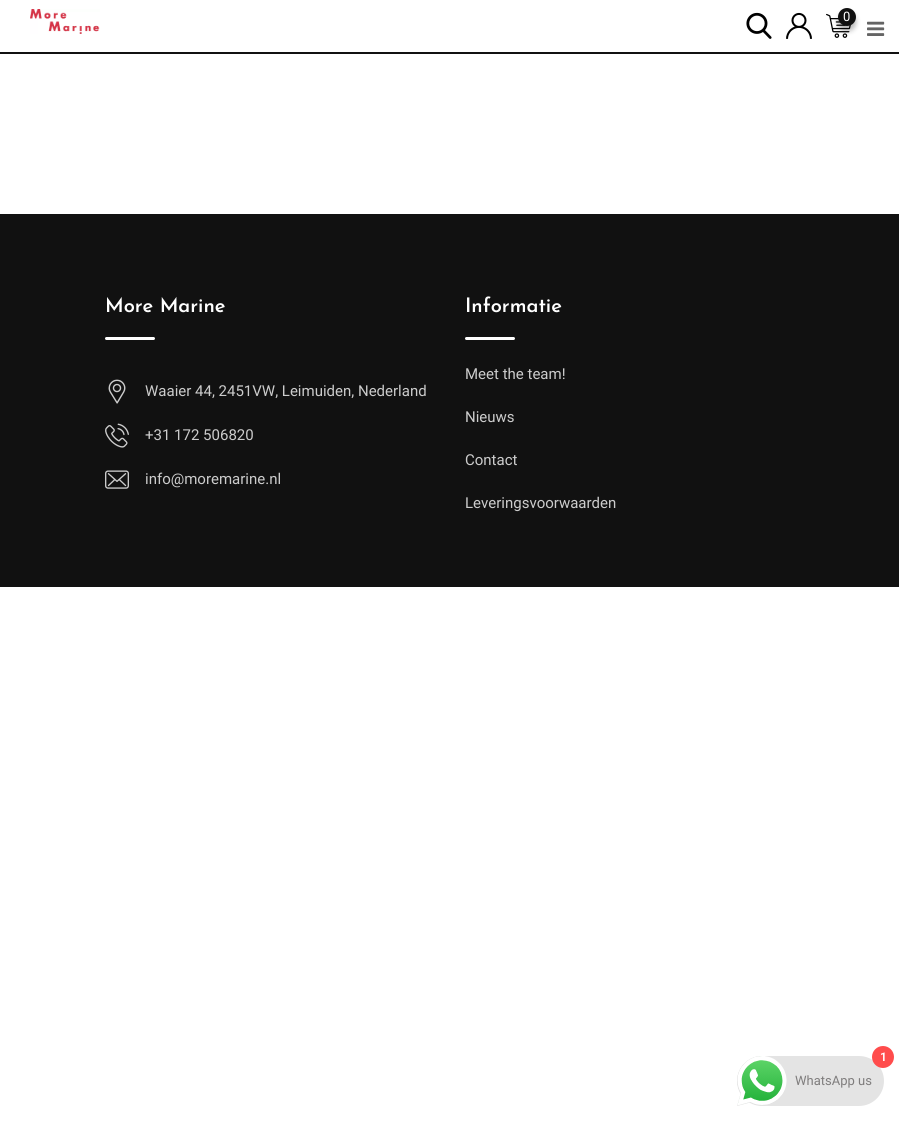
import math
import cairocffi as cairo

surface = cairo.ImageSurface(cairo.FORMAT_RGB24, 899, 1121)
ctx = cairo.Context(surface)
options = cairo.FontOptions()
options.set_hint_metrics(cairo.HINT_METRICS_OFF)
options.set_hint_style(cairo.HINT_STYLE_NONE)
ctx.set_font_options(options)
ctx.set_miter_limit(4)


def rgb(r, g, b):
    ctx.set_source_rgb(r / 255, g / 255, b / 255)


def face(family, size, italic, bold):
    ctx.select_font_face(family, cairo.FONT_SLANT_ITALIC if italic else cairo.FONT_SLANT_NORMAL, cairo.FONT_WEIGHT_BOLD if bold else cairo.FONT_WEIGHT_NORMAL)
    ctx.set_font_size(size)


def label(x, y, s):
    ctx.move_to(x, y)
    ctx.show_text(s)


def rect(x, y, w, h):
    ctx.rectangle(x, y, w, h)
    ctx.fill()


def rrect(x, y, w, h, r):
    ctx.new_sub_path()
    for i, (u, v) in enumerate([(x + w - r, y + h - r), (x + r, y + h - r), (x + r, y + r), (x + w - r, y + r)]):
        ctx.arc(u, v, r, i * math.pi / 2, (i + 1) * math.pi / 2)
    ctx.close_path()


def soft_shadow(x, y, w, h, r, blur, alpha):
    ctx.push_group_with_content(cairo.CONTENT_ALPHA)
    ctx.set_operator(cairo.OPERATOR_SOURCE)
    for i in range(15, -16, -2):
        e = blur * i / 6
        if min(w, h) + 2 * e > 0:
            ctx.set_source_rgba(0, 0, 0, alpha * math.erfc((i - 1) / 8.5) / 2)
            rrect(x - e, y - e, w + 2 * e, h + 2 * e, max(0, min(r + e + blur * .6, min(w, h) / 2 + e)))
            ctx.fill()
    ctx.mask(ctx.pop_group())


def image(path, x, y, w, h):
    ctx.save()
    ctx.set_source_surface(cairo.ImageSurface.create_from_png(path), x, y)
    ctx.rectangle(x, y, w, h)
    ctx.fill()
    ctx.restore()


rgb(255, 255, 255)
ctx.paint()
rgb(17, 17, 17)
rect(0, 52, 899, 2)
image('image0.png', 30, 9, 70, 25)
image('image1.png', 746, 12, 26, 27)
image('image2.png', 786, 12, 26, 27)
image('image3.png', 826, 13, 25, 25)
rgb(17, 17, 17)
soft_shadow(838, 13, 18, 18, 9, 2.5, 0.3)
rgb(17, 17, 17)
ctx.arc(847, 17, 9, 0, 2 * math.pi)
ctx.fill()
face('Roboto', 13, 0, 0)
rgb(255, 255, 255)
label(843, 21, '0')
image('image4.png', 867, 21, 18, 15)
rgb(17, 17, 17)
rect(0, 214, 899, 373)
face('Josefin Sans SemiBold', 20, 0, 0)
rgb(255, 255, 255)
label(105, 312, 'More Marine')
rrect(105, 337, 50, 3, 1.5)
ctx.fill()
image('image5.png', 108, 379, 18, 25)
face('Roboto', 15, 0, 0)
rgb(204, 204, 204)
label(145, 396, 'Waaier 44, 2451VW, Leimuiden, Nederland')
image('image6.png', 105, 423, 24, 25)
label(145, 440, '+31 172 506820')
image('image7.png', 105, 470, 24, 19)
label(145, 484, 'info@moremarine.nl')
face('Josefin Sans SemiBold', 20, 0, 0)
rgb(255, 255, 255)
label(465, 312, 'Informatie')
rrect(465, 337, 50, 3, 1.5)
ctx.fill()
face('Roboto', 15, 0, 0)
rgb(204, 204, 204)
label(465, 379, 'Meet the team!')
label(465, 422, 'Nieuws')
label(465, 465, 'Contact')
label(465, 508, 'Leveringsvoorwaarden')
rgb(228, 228, 228)
rrect(737, 1056, 147, 50, 25)
ctx.fill()
rgb(255, 76, 76)
ctx.arc(883, 1057, 11, 0, 2 * math.pi)
ctx.fill()
face('Roboto SemiBold', 12, 0, 0)
rgb(255, 255, 255)
label(880, 1061, '1')
image('image8.png', 737, 1056, 50, 50)
face('Roboto', 13, 0, 0)
rgb(127, 125, 125)
label(795, 1085, 'WhatsApp us')
surface.write_to_png('render.png')
